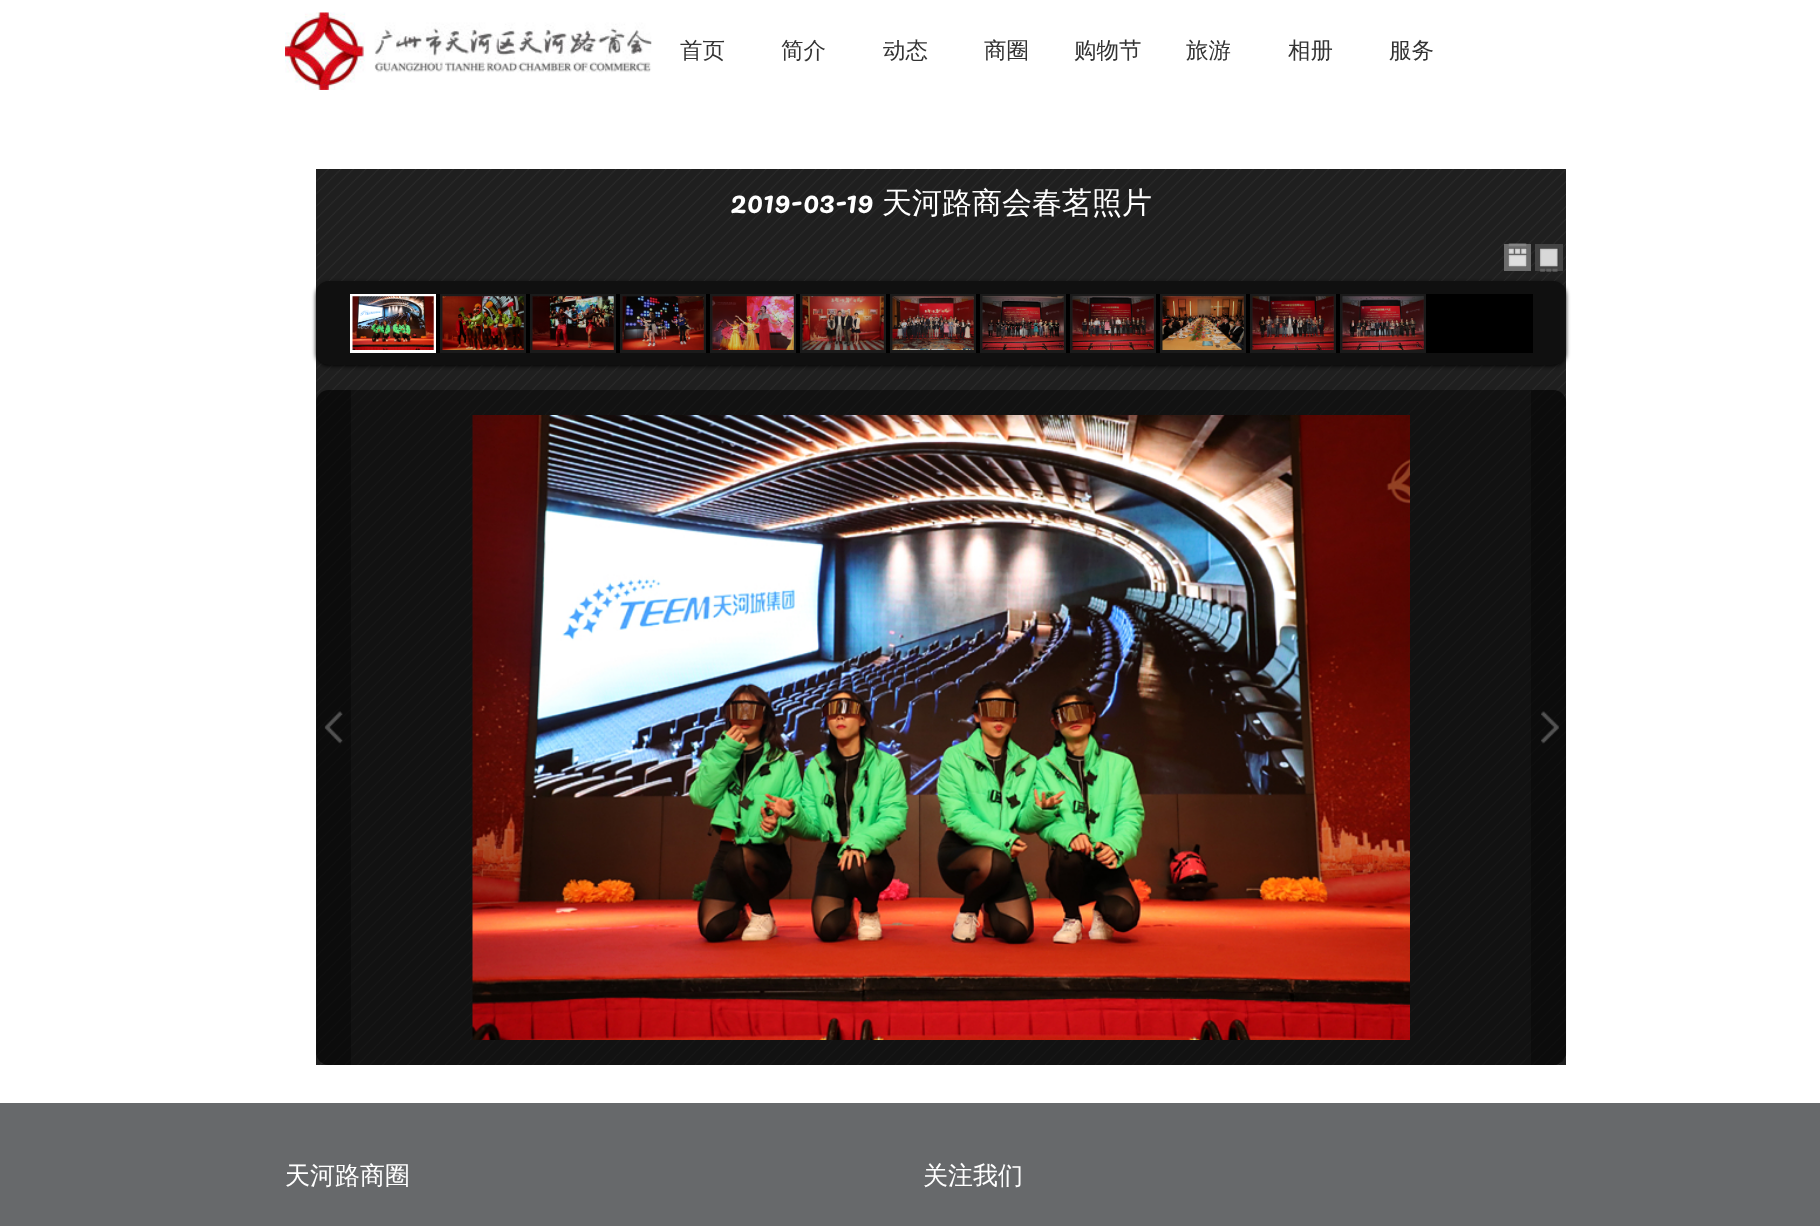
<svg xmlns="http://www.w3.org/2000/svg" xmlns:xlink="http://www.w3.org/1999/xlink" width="1820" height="1226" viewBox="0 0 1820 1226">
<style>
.cls-1{font:500 22.5px WenQuanYi Zen Hei;fill:#333333}
.cls-2{font:30px Pacifico;fill:#ffffff}
.cls-3{font:500 30px WenQuanYi Zen Hei;fill:#ffffff}
.cls-4{font:500 25px WenQuanYi Zen Hei;fill:#ffffff}
</style>
<rect width="100%" height="100%" fill="#ffffff"/>
<image xlink:href="image0.png" x="285" y="12" width="367" height="78"/>
<rect fill="#1f1f1f" x="316" y="169" width="1250" height="896"/>
<image xlink:href="image1.png" x="316" y="169" width="1250" height="896"/>
<rect fill="#6f6f6f" fill-opacity="0.8" x="1504" y="244" width="27" height="27"/>
<image xlink:href="image2.png" x="1508" y="243" width="19" height="24"/>
<rect fill="none" stroke="#6f6f6f" stroke-opacity="0.8" stroke-width="4" x="1506" y="246" width="23" height="23"/>
<rect fill="#464646" fill-opacity="0.8" x="1535" y="244" width="28" height="27"/>
<image xlink:href="image3.png" x="1539" y="248" width="19" height="24"/>
<rect fill="none" stroke="#464646" stroke-opacity="0.8" stroke-width="4" x="1537" y="246" width="24" height="23"/>
<rect fill="#000000" fill-opacity="0.9" filter="blur(2px)" x="316" y="283" width="1250" height="83" rx="13"/>
<rect fill="#101010" x="316" y="281" width="1250" height="84" rx="13"/>
<rect fill="#000000" x="436" y="294" width="1097" height="59"/>
<rect fill="none" stroke="#ffffff" stroke-width="3" x="351.5" y="295.5" width="83" height="56"/>
<image xlink:href="image4.png" x="352" y="296" width="82" height="54"/>
<rect fill="none" stroke="#1b1b1b" stroke-width="3" x="441.5" y="295.5" width="83" height="56"/>
<image xlink:href="image5.png" x="442" y="296" width="82" height="54"/>
<rect fill="none" stroke="#1b1b1b" stroke-width="3" x="531.5" y="295.5" width="83" height="56"/>
<image xlink:href="image6.png" x="532" y="296" width="82" height="54"/>
<rect fill="none" stroke="#1b1b1b" stroke-width="3" x="621.5" y="295.5" width="83" height="56"/>
<image xlink:href="image7.png" x="622" y="296" width="82" height="54"/>
<rect fill="none" stroke="#1b1b1b" stroke-width="3" x="711.5" y="295.5" width="83" height="56"/>
<image xlink:href="image8.png" x="712" y="296" width="82" height="54"/>
<rect fill="none" stroke="#1b1b1b" stroke-width="3" x="801.5" y="295.5" width="83" height="56"/>
<image xlink:href="image9.png" x="802" y="296" width="82" height="54"/>
<rect fill="none" stroke="#1b1b1b" stroke-width="3" x="891.5" y="295.5" width="83" height="56"/>
<image xlink:href="image10.png" x="892" y="296" width="82" height="54"/>
<rect fill="none" stroke="#1b1b1b" stroke-width="3" x="981.5" y="295.5" width="83" height="56"/>
<image xlink:href="image11.png" x="982" y="296" width="82" height="54"/>
<rect fill="none" stroke="#1b1b1b" stroke-width="3" x="1071.5" y="295.5" width="83" height="56"/>
<image xlink:href="image12.png" x="1072" y="296" width="82" height="54"/>
<rect fill="none" stroke="#1b1b1b" stroke-width="3" x="1161.5" y="295.5" width="83" height="56"/>
<image xlink:href="image13.png" x="1162" y="296" width="82" height="54"/>
<rect fill="none" stroke="#1b1b1b" stroke-width="3" x="1251.5" y="295.5" width="83" height="56"/>
<image xlink:href="image14.png" x="1252" y="296" width="82" height="54"/>
<rect fill="none" stroke="#1b1b1b" stroke-width="3" x="1341.5" y="295.5" width="83" height="56"/>
<image xlink:href="image15.png" x="1342" y="296" width="82" height="54"/>
<image xlink:href="image16.png" x="316" y="390" width="1251" height="675"/>
<path fill="#000000" fill-opacity="0.3" d="M329 390H351V1065H329C322 1065 316 1059 316 1052V403C316 396 322 390 329 390Z"/>
<image xlink:href="image17.png" x="324" y="711" width="19" height="33"/>
<path fill="#000000" fill-opacity="0.3" d="M1531 390H1553C1560 390 1566 396 1566 403V1052C1566 1059 1560 1065 1553 1065H1531Z"/>
<image xlink:href="image18.png" x="1541" y="711" width="18" height="33"/>
<image xlink:href="image19.png" x="472" y="415" width="938" height="625"/>
<rect fill="#67696b" x="0" y="1103" width="1820" height="123"/>
<text class="cls-1" x="680" y="58">首页</text>
<text class="cls-1" x="781" y="58">简介</text>
<text class="cls-1" x="883" y="58">动态</text>
<text class="cls-1" x="984" y="58">商圈</text>
<text class="cls-1" x="1074" y="58">购物节</text>
<text class="cls-1" x="1186" y="58">旅游</text>
<text class="cls-1" x="1288" y="58">相册</text>
<text class="cls-1" x="1389" y="58">服务</text>
<text class="cls-2" x="730" y="213">2019-03-19</text>
<text class="cls-3" x="882" y="213">天河路商会春茗照片</text>
<text class="cls-4" x="285" y="1184">天河路商圈</text>
<text class="cls-4" x="923" y="1184">关注我们</text>
</svg>
